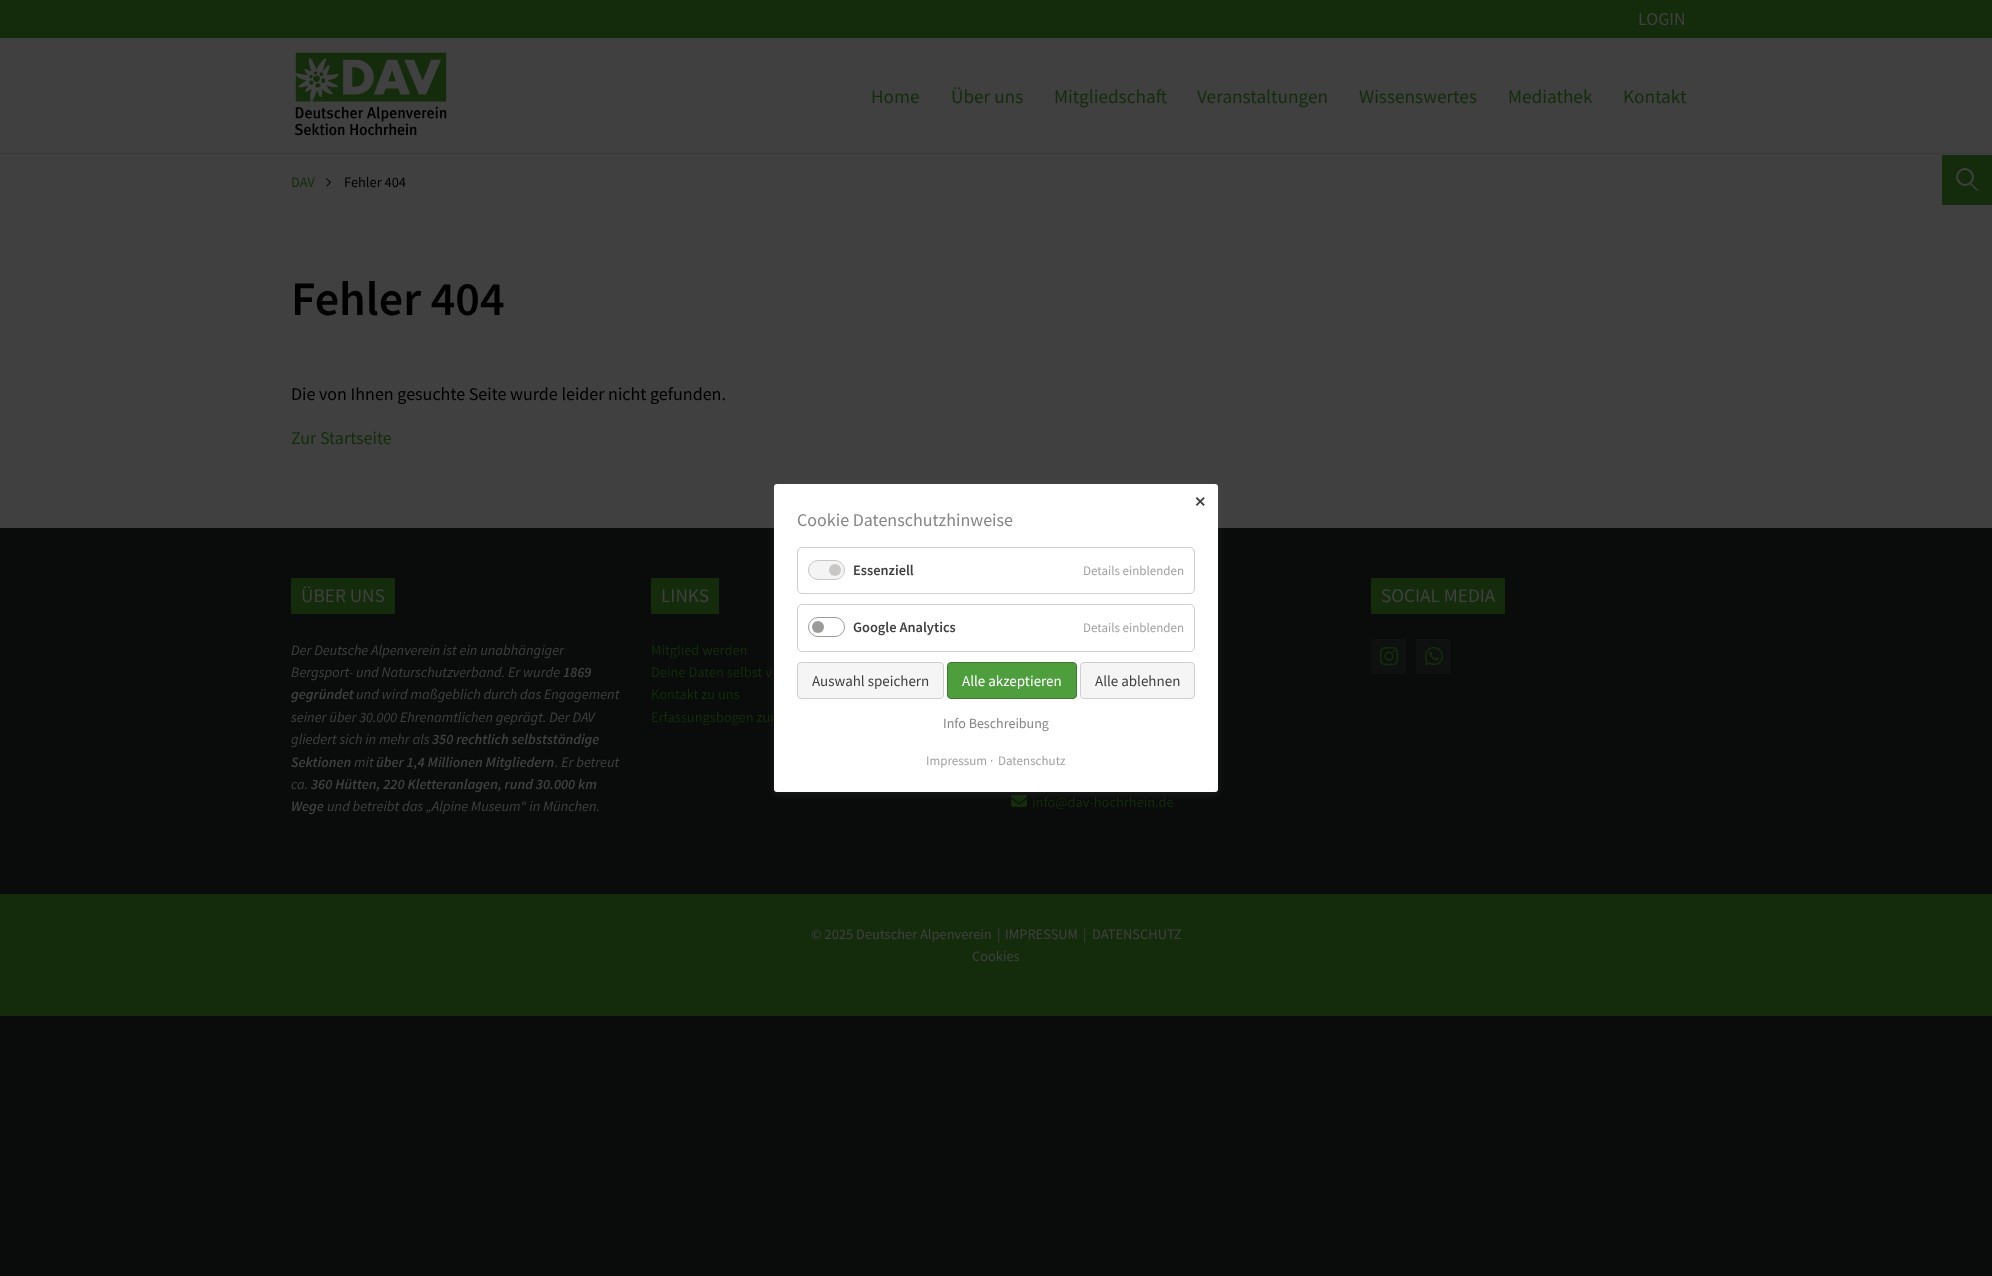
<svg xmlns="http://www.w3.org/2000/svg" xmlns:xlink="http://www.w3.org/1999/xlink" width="1992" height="1276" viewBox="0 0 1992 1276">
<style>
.cls-1{font:18px Source Sans Pro;fill:#404040}
.cls-2{font:19.25px Source Sans Pro;fill:#142c0c}
.cls-3{font:14.4px Source Sans Pro;fill:#142c0c}
.cls-4{font:14.4px Source Sans Pro;fill:#000000}
.cls-5{font:600 48px Source Sans Pro;fill:#000000}
.cls-6{font:18px Source Sans Pro;fill:#000000}
.cls-7{font:18px Source Sans Pro;fill:#142c0c}
.cls-8{font:19.25px Source Sans Pro;fill:#404040}
.cls-9{font:italic 14.4px Source Sans Pro;fill:#404040}
.cls-10{font:italic 600 14.4px Source Sans Pro;fill:#404040}
.cls-11{font:14.4px Source Sans Pro;fill:#404040}
.cls-12{font:bold 14.4px DejaVu Sans;fill:#404040}
.cls-13{font:18px Source Sans Pro;fill:#868686}
.cls-14{font:600 14.4px Source Sans Pro;fill:#404040}
.cls-15{font:13px Source Sans Pro;fill:#a2a2a2}
.cls-16{font:15px Source Sans Pro;fill:#404040}
.cls-17{font:15px Source Sans Pro;fill:#ffffff}
.cls-18{font:14px Source Sans Pro;fill:#868686}
</style>
<rect width="100%" height="100%" fill="#0a0b0b"/>
<rect fill="#142c0c" x="0" y="0" width="1992" height="38"/>
<rect fill="#404040" x="0" y="38" width="1992" height="490"/>
<rect fill="#393939" x="0" y="153" width="1992" height="1"/>
<image xlink:href="image0.png" x="294" y="52" width="153" height="84"/>
<rect fill="#142c0c" x="1942" y="155" width="50" height="50"/>
<path fill="none" stroke="#404040" stroke-width="2" d="M1970.5 171.5C1978 179 1967 190 1959.5 182.5C1952 175 1963 164 1970.5 171.5Z"/>
<path fill="#404040" d="M1970 184L1971 183L1978 190L1977 191Z"/>
<image xlink:href="image1.png" x="326" y="178" width="5" height="9"/>
<rect fill="#142c0c" x="291" y="578" width="104" height="36"/>
<rect fill="#142c0c" x="651" y="578" width="68" height="36"/>
<rect fill="#142c0c" x="1371" y="578" width="134" height="36"/>
<rect fill="#0e110f" x="1371" y="639" width="35" height="35"/>
<image xlink:href="image2.png" x="1379" y="646" width="20" height="20"/>
<rect fill="#0e110f" x="1416" y="639" width="35" height="35"/>
<image xlink:href="image3.png" x="1424" y="647" width="20" height="19"/>
<image xlink:href="image4.png" x="1011" y="795" width="16" height="12"/>
<rect fill="#142c0c" x="0" y="894" width="1992" height="122"/>
<rect fill="#636363" fill-opacity="0.2" filter="blur(4px)" x="774" y="486" width="444" height="308" rx="3"/>
<text class="cls-1" x="1638" y="25">LOGIN</text>
<text class="cls-2" x="871" y="103">Home</text>
<text class="cls-2" x="951" y="103">Über uns</text>
<text class="cls-2" x="1054" y="103">Mitgliedschaft</text>
<text class="cls-2" x="1197" y="103">Veranstaltungen</text>
<text class="cls-2" x="1359" y="103">Wissenswertes</text>
<text class="cls-2" x="1508" y="103">Mediathek</text>
<text class="cls-2" x="1623" y="103">Kontakt</text>
<text class="cls-3" x="291" y="187">DAV</text>
<text class="cls-4" x="344" y="187">Fehler 404</text>
<text class="cls-5" x="291" y="315">Fehler 404</text>
<text class="cls-6" x="291" y="400">Die von Ihnen gesuchte Seite wurde leider nicht gefunden.</text>
<text class="cls-7" x="291" y="444">Zur Startseite</text>
<text class="cls-8" x="301" y="602">ÜBER UNS</text>
<text class="cls-9"><tspan x="291" y="655">Der Deutsche Alpenverein ist ein unabhängiger</tspan><tspan x="291" y="677">Bergsport- und Naturschutzverband. Er wurde</tspan></text>
<text class="cls-10" x="563" y="677">1869</text>
<text class="cls-10" x="291" y="699">gegründet</text>
<text class="cls-9" x="356" y="699">und wird maßgeblich durch das Engagement</text>
<text class="cls-9"><tspan x="291" y="722">seiner über 30.000 Ehrenamtlichen geprägt. Der DAV</tspan><tspan x="291" y="744">gliedert sich in mehr als</tspan></text>
<text class="cls-10" x="432" y="744">350 rechtlich selbstständige</text>
<text class="cls-10" x="291" y="767">Sektionen</text>
<text class="cls-9" x="354" y="767">mit</text>
<text class="cls-10" x="376" y="767">über 1,4 Millionen Mitgliedern</text>
<text class="cls-9" x="555" y="767">. Er betreut</text>
<text class="cls-9" x="291" y="789">ca.</text>
<text class="cls-10" x="311" y="789">360 Hütten, 220 Kletteranlagen, rund 30.000 km</text>
<text class="cls-10" x="291" y="811">Wege</text>
<text class="cls-9" x="327" y="811">und betreibt das „Alpine Museum“ in München.</text>
<text class="cls-8" x="661" y="602">LINKS</text>
<text class="cls-3"><tspan x="651" y="655">Mitglied werden</tspan><tspan x="651" y="677">Deine Daten selbst v</tspan><tspan x="651" y="699">Kontakt zu uns</tspan><tspan x="651" y="722">Erfassungsbogen zur</tspan></text>
<text class="cls-8" x="1381" y="602">SOCIAL MEDIA</text>
<text class="cls-3" x="1032" y="807">info@dav-hochrhein.de</text>
<text class="cls-11" x="811" y="939">© 2025 Deutscher Alpenverein</text>
<text class="cls-11" x="997" y="939">|</text>
<text class="cls-11" x="1005" y="939">IMPRESSUM</text>
<text class="cls-11" x="1083" y="939">|</text>
<text class="cls-11" x="1092" y="939">DATENSCHUTZ</text>
<text class="cls-11" x="972" y="961">Cookies</text>
<rect fill="#ffffff" x="774" y="484" width="444" height="308" rx="3"/>
<text class="cls-12" x="1194" y="507">✕</text>
<text class="cls-13" x="797" y="526">Cookie Datenschutzhinweise</text>
<rect fill="none" stroke="#d0d0d0" x="797.5" y="547.5" width="397" height="46" rx="4.5"/>
<rect fill="#f4f4f4" stroke="#c8c7c5" x="808.5" y="560.5" width="36" height="19" rx="9.5"/>
<circle fill="#c8c7c5" cx="835" cy="570" r="6"/>
<text class="cls-14" x="853" y="575">Essenziell</text>
<text class="cls-15" x="1083" y="575">Details einblenden</text>
<rect fill="none" stroke="#d0d0d0" x="797.5" y="604.5" width="397" height="47" rx="4.5"/>
<rect fill="none" stroke="#9c9b99" x="808.5" y="617.5" width="36" height="19" rx="9.5"/>
<circle fill="#9c9b99" cx="818" cy="627" r="6"/>
<text class="cls-14" x="853" y="632">Google Analytics</text>
<text class="cls-15" x="1083" y="632">Details einblenden</text>
<rect fill="#f5f5f5" stroke="#cfcfcf" x="797.5" y="662.5" width="146" height="36" rx="3.5"/>
<text class="cls-16" x="812" y="686">Auswahl speichern</text>
<rect fill="#4e9e3e" stroke="#3e7830" x="947.5" y="662.5" width="129" height="36" rx="3.5"/>
<text class="cls-17" x="962" y="686">Alle akzeptieren</text>
<rect fill="#f5f5f5" stroke="#cfcfcf" x="1080.5" y="662.5" width="114" height="36" rx="3.5"/>
<text class="cls-16" x="1095" y="686">Alle ablehnen</text>
<text class="cls-18" x="943" y="728">Info Beschreibung</text>
<text class="cls-15" x="926" y="765">Impressum</text>
<text class="cls-15" x="990" y="765">·</text>
<text class="cls-15" x="998" y="765">Datenschutz</text>
</svg>
